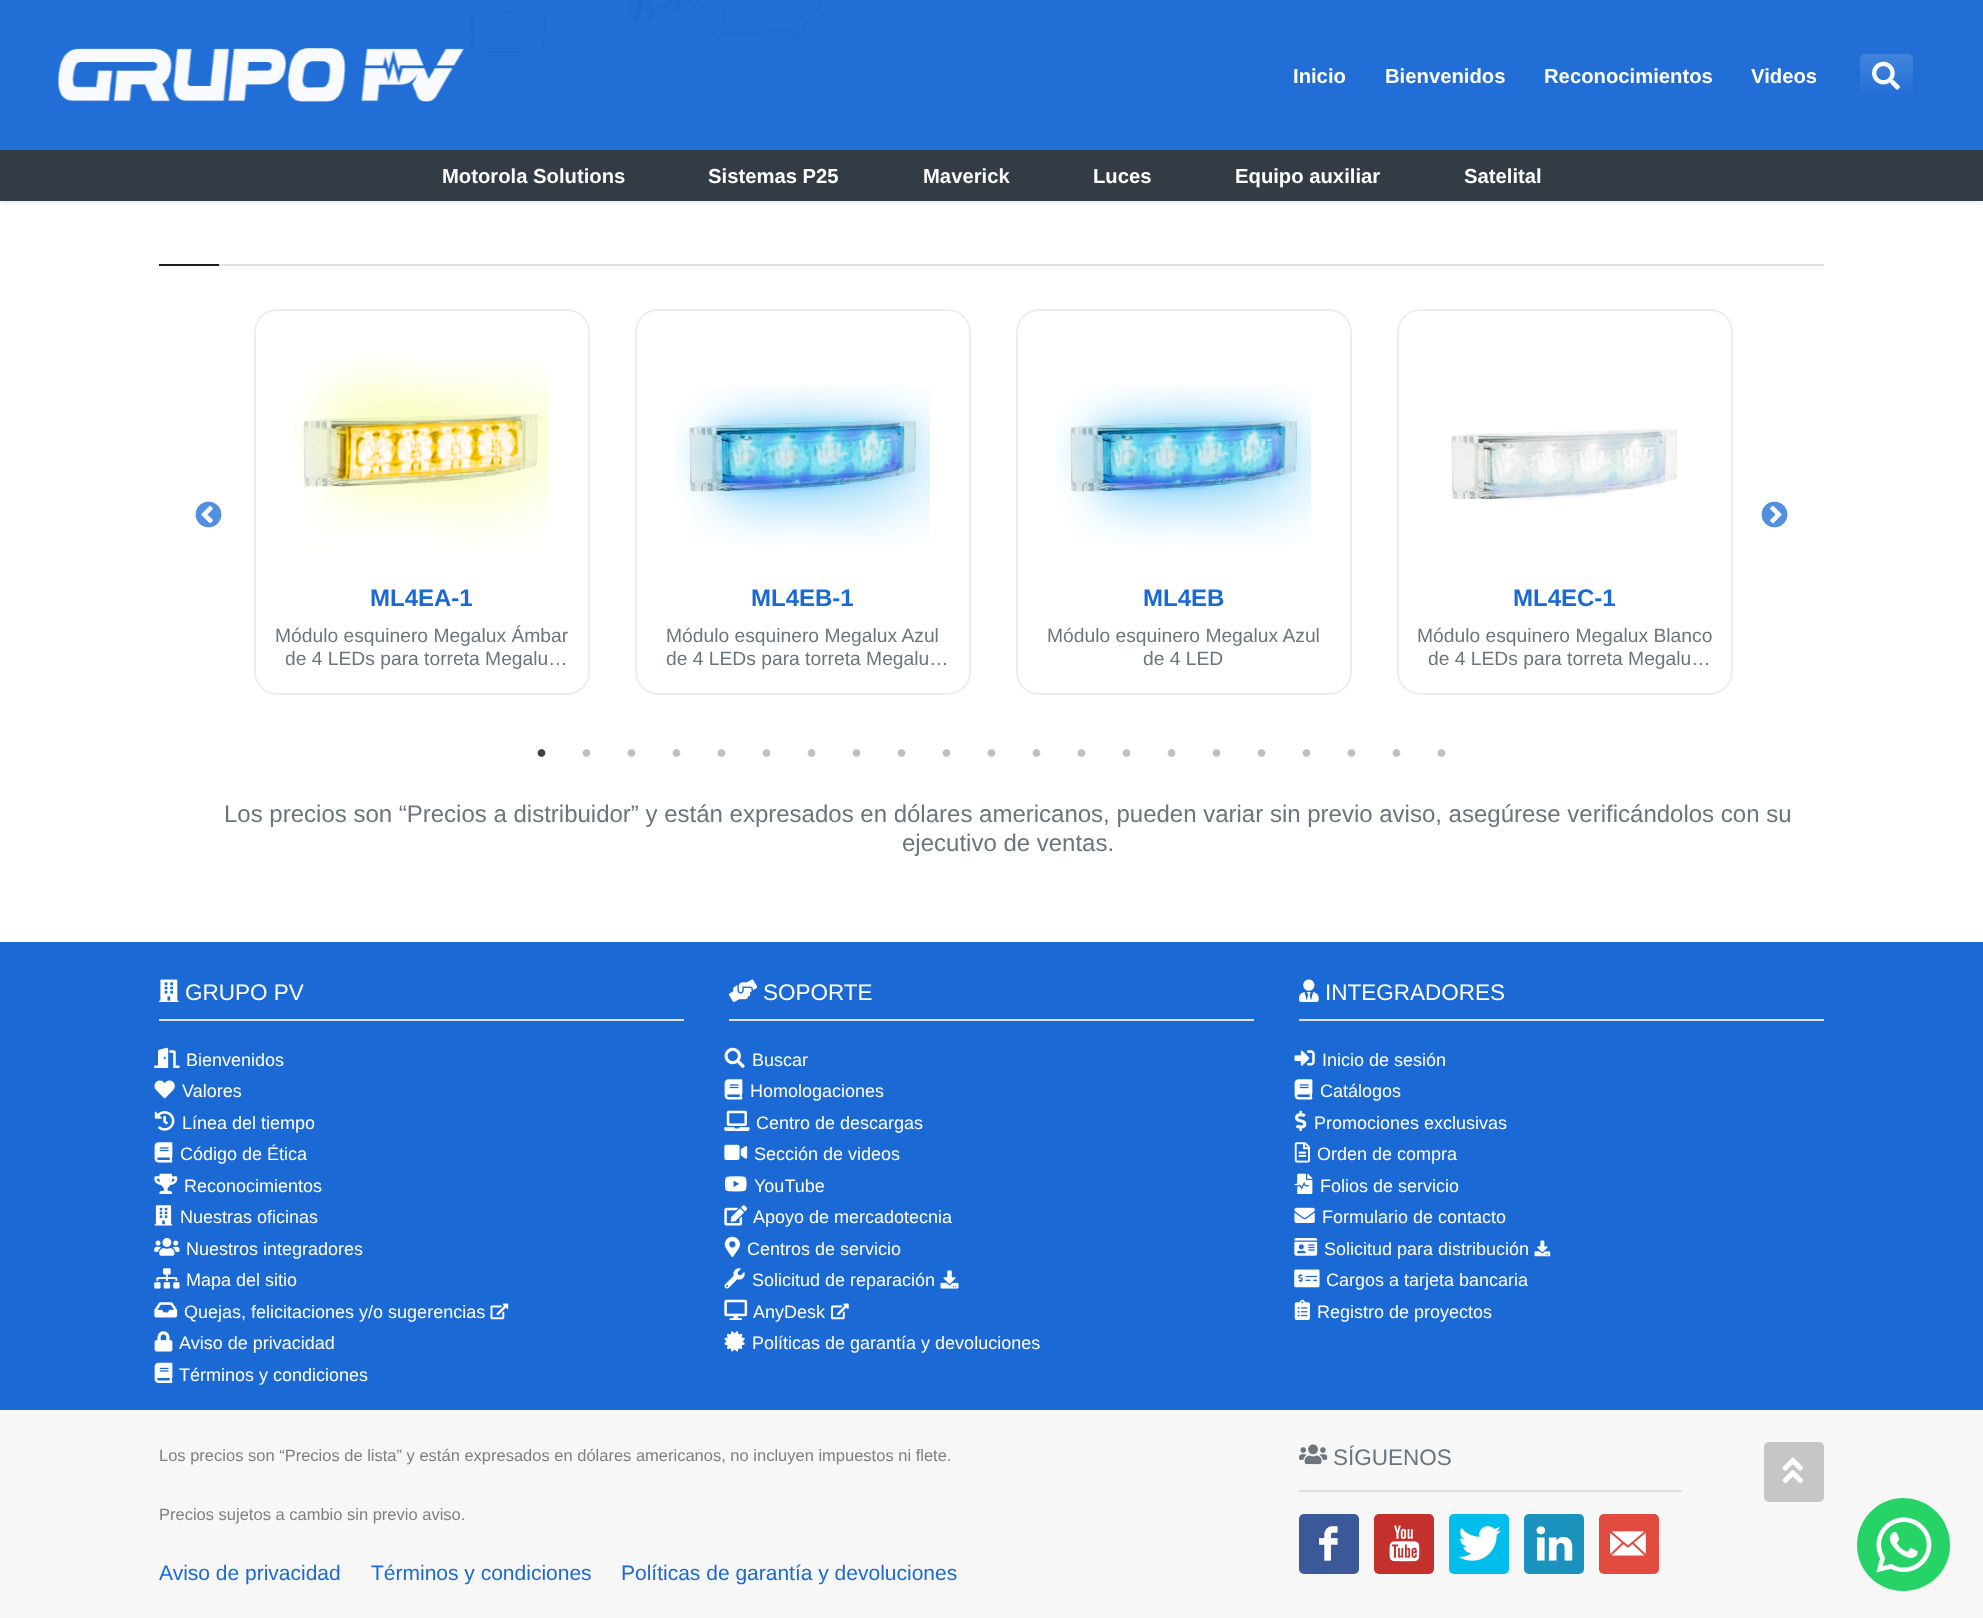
<svg xmlns="http://www.w3.org/2000/svg" xmlns:xlink="http://www.w3.org/1999/xlink" width="1983" height="1618" viewBox="0 0 1983 1618">
<style>
.cls-1{font:bold 20.25px Liberation Sans;fill:#ffffff}
.cls-2{font:bold 20.25px Liberation Sans;fill:#f9f9f9}
.cls-3{font:bold 24px Arimo;fill:#1a69d5}
.cls-4{font:19.25px Arimo;fill:#6c757d}
.cls-5{font:24px Arimo;fill:#6c757d}
.cls-6{font:22.5px Arimo;fill:#ffffff}
.cls-7{font:18px Arimo;fill:#ffffff}
.cls-8{font:16.5px Arimo;fill:#7f7f7f}
.cls-9{font:21px Arimo;fill:#1a69d5}
.cls-10{font:22.5px Arimo;fill:#6c757d}
</style>
<defs>
<clipPath id="clip1"><rect x="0" y="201" width="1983" height="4"/></clipPath>
<linearGradient id="g1" gradientUnits="userSpaceOnUse" x1="1886" y1="54" x2="1886" y2="98"><stop offset="0" stop-color="#4284dc"/><stop offset="1" stop-color="#216ed6"/></linearGradient>
</defs>
<rect width="100%" height="100%" fill="#ffffff"/>
<image xlink:href="image2.png" x="470" y="0" width="356" height="68"/>
<g clip-path="url(#clip1)">
<rect fill="#000000" fill-opacity="0.15" filter="blur(4px)" x="0" y="0" width="1983" height="201"/>
</g>
<rect fill="#1a69d5" fill-opacity="0.97" x="0" y="0" width="1983" height="201"/>
<image xlink:href="image0.png" x="58" y="48" width="406" height="54"/>
<rect fill="url(#g1)" x="1860" y="54" width="53" height="44" rx="5"/>
<image xlink:href="image1.png" x="1872" y="61" width="28" height="29"/>
<rect fill="#343a40" fill-opacity="0.97" x="0" y="150" width="1983" height="51"/>
<rect fill="#e1e1e1" x="219" y="264" width="1605" height="2"/>
<rect fill="#1e1e1e" x="159" y="264" width="60" height="2"/>
<image xlink:href="image3.png" x="195" y="501" width="27" height="27"/>
<image xlink:href="image4.png" x="1761" y="501" width="27" height="27"/>
<rect fill="none" stroke="#eeeeee" stroke-width="2" x="255" y="310" width="334" height="384" rx="22"/>
<image xlink:href="image5.png" x="294" y="354" width="255" height="197"/>
<rect fill="none" stroke="#eeeeee" stroke-width="2" x="636" y="310" width="334" height="384" rx="22"/>
<image xlink:href="image6.png" x="675" y="385" width="255" height="160"/>
<rect fill="none" stroke="#eeeeee" stroke-width="2" x="1017" y="310" width="334" height="384" rx="22"/>
<image xlink:href="image6.png" x="1056" y="385" width="255" height="160"/>
<rect fill="none" stroke="#eeeeee" stroke-width="2" x="1398" y="310" width="334" height="384" rx="22"/>
<image xlink:href="image7.png" x="1451" y="429" width="226" height="72"/>
<image xlink:href="image8.png" x="537" y="749" width="9" height="8"/>
<image xlink:href="image9.png" x="582" y="749" width="9" height="8"/>
<image xlink:href="image9.png" x="627" y="749" width="9" height="8"/>
<image xlink:href="image9.png" x="672" y="749" width="9" height="8"/>
<image xlink:href="image9.png" x="717" y="749" width="9" height="8"/>
<image xlink:href="image9.png" x="762" y="749" width="9" height="8"/>
<image xlink:href="image9.png" x="807" y="749" width="9" height="8"/>
<image xlink:href="image9.png" x="852" y="749" width="9" height="8"/>
<image xlink:href="image9.png" x="897" y="749" width="9" height="8"/>
<image xlink:href="image9.png" x="942" y="749" width="9" height="8"/>
<image xlink:href="image9.png" x="987" y="749" width="9" height="8"/>
<image xlink:href="image9.png" x="1032" y="749" width="9" height="8"/>
<image xlink:href="image9.png" x="1077" y="749" width="9" height="8"/>
<image xlink:href="image9.png" x="1122" y="749" width="9" height="8"/>
<image xlink:href="image9.png" x="1167" y="749" width="9" height="8"/>
<image xlink:href="image9.png" x="1212" y="749" width="9" height="8"/>
<image xlink:href="image9.png" x="1257" y="749" width="9" height="8"/>
<image xlink:href="image9.png" x="1302" y="749" width="9" height="8"/>
<image xlink:href="image9.png" x="1347" y="749" width="9" height="8"/>
<image xlink:href="image9.png" x="1392" y="749" width="9" height="8"/>
<image xlink:href="image9.png" x="1437" y="749" width="9" height="8"/>
<rect fill="#1a69d5" x="0" y="942" width="1983" height="468"/>
<rect fill="#e1e1e1" x="159" y="1019" width="525" height="2"/>
<image xlink:href="image10.png" x="159" y="979" width="20" height="23"/>
<image xlink:href="image11.png" x="154" y="1047" width="26" height="21"/>
<image xlink:href="image12.png" x="154" y="1080" width="21" height="19"/>
<image xlink:href="image13.png" x="154" y="1111" width="21" height="20"/>
<image xlink:href="image14.png" x="154" y="1142" width="19" height="21"/>
<image xlink:href="image15.png" x="154" y="1173" width="24" height="21"/>
<image xlink:href="image16.png" x="154" y="1205" width="19" height="21"/>
<image xlink:href="image17.png" x="154" y="1238" width="26" height="18"/>
<image xlink:href="image18.png" x="154" y="1268" width="26" height="21"/>
<image xlink:href="image19.png" x="154" y="1302" width="24" height="16"/>
<image xlink:href="image20.png" x="490" y="1303" width="19" height="17"/>
<image xlink:href="image21.png" x="154" y="1331" width="19" height="21"/>
<image xlink:href="image22.png" x="154" y="1362" width="19" height="21"/>
<rect fill="#e1e1e1" x="729" y="1019" width="525" height="2"/>
<image xlink:href="image23.png" x="729" y="979" width="29" height="23"/>
<image xlink:href="image24.png" x="724" y="1047" width="21" height="21"/>
<image xlink:href="image14.png" x="724" y="1079" width="19" height="21"/>
<image xlink:href="image25.png" x="724" y="1110" width="26" height="21"/>
<image xlink:href="image26.png" x="724" y="1144" width="24" height="16"/>
<image xlink:href="image27.png" x="724" y="1176" width="23" height="16"/>
<image xlink:href="image28.png" x="724" y="1205" width="24" height="21"/>
<image xlink:href="image29.png" x="724" y="1236" width="16" height="21"/>
<image xlink:href="image30.png" x="724" y="1268" width="21" height="21"/>
<image xlink:href="image31.png" x="940" y="1270" width="19" height="19"/>
<image xlink:href="image32.png" x="724" y="1299" width="24" height="21"/>
<image xlink:href="image33.png" x="831" y="1303" width="18" height="17"/>
<image xlink:href="image34.png" x="724" y="1331" width="21" height="21"/>
<rect fill="#e1e1e1" x="1299" y="1019" width="525" height="2"/>
<image xlink:href="image35.png" x="1299" y="979" width="20" height="23"/>
<image xlink:href="image36.png" x="1294" y="1050" width="21" height="16"/>
<image xlink:href="image14.png" x="1294" y="1079" width="19" height="21"/>
<image xlink:href="image37.png" x="1295" y="1110" width="12" height="21"/>
<image xlink:href="image38.png" x="1294" y="1142" width="16" height="21"/>
<image xlink:href="image39.png" x="1294" y="1173" width="19" height="21"/>
<image xlink:href="image40.png" x="1294" y="1207" width="21" height="16"/>
<image xlink:href="image41.png" x="1294" y="1238" width="24" height="18"/>
<image xlink:href="image42.png" x="1534" y="1240" width="17" height="17"/>
<image xlink:href="image43.png" x="1294" y="1269" width="26" height="19"/>
<image xlink:href="image44.png" x="1294" y="1299" width="16" height="21"/>
<rect fill="#f7f7f7" x="0" y="1410" width="1983" height="208"/>
<rect fill="#e1e1e1" x="1299" y="1490" width="383" height="2"/>
<image xlink:href="image45.png" x="1299" y="1444" width="29" height="21"/>
<rect fill="#3b5998" x="1299" y="1514" width="60" height="60" rx="5"/>
<image xlink:href="image46.png" x="1319" y="1526" width="19" height="35"/>
<rect fill="#c4302b" x="1374" y="1514" width="60" height="60" rx="5"/>
<image xlink:href="image47.png" x="1389" y="1525" width="31" height="37"/>
<rect fill="#00bdec" x="1449" y="1514" width="60" height="60" rx="5"/>
<image xlink:href="image48.png" x="1458" y="1526" width="43" height="35"/>
<rect fill="#1b92bd" x="1524" y="1514" width="60" height="60" rx="5"/>
<image xlink:href="image49.png" x="1536" y="1526" width="37" height="35"/>
<rect fill="#e04a3f" x="1599" y="1514" width="60" height="60" rx="5"/>
<image xlink:href="image50.png" x="1610" y="1531" width="36" height="25"/>
<rect fill="#c6c6c6" x="1764" y="1442" width="60" height="60" rx="5"/>
<image xlink:href="image51.png" x="1782" y="1457" width="21" height="27"/>
<path fill="#25d366" d="M1903 1498C1878 1498 1857 1519 1857 1545C1857 1571 1878 1591 1903 1591C1929 1591 1950 1571 1950 1545C1950 1519 1929 1498 1903 1498Z"/>
<image xlink:href="image52.png" x="1876" y="1517" width="56" height="56"/>
<text class="cls-1" x="1293" y="83">Inicio</text>
<text class="cls-1" x="1385" y="83">Bienvenidos</text>
<text class="cls-1" x="1544" y="83">Reconocimientos</text>
<text class="cls-1" x="1751" y="83">Videos</text>
<text class="cls-2" x="442" y="183">Motorola Solutions</text>
<text class="cls-1" x="708" y="183">Sistemas P25</text>
<text class="cls-2" x="923" y="183">Maverick</text>
<text class="cls-1" x="1093" y="183">Luces</text>
<text class="cls-1" x="1235" y="183">Equipo auxiliar</text>
<text class="cls-1" x="1464" y="183">Satelital</text>
<text class="cls-3" x="370" y="606">ML4EA-1</text>
<text class="cls-4" x="275" y="642">Módulo esquinero Megalux Ámbar</text>
<text class="cls-4" x="285" y="665">de 4 LEDs para torreta Megalu…</text>
<text class="cls-3" x="751" y="606">ML4EB-1</text>
<text class="cls-4"><tspan x="666" y="642">Módulo esquinero Megalux Azul</tspan><tspan x="666" y="665">de 4 LEDs para torreta Megalu…</tspan></text>
<text class="cls-3" x="1143" y="606">ML4EB</text>
<text class="cls-4" x="1047" y="642">Módulo esquinero Megalux Azul</text>
<text class="cls-4" x="1143" y="665">de 4 LED</text>
<text class="cls-3" x="1513" y="606">ML4EC-1</text>
<text class="cls-4" x="1417" y="642">Módulo esquinero Megalux Blanco</text>
<text class="cls-4" x="1428" y="665">de 4 LEDs para torreta Megalu…</text>
<text class="cls-5" x="224" y="822">Los precios son “Precios a distribuidor” y están expresados en dólares americanos, pueden variar sin previo aviso, asegúrese verificándolos con su</text>
<text class="cls-5" x="902" y="851">ejecutivo de ventas.</text>
<text class="cls-6" x="185" y="1000">GRUPO PV</text>
<text class="cls-7" x="186" y="1066">Bienvenidos</text>
<text class="cls-7"><tspan x="182" y="1097">Valores</tspan><tspan x="182" y="1129">Línea del tiempo</tspan></text>
<text class="cls-7" x="180" y="1160">Código de Ética</text>
<text class="cls-7" x="184" y="1192">Reconocimientos</text>
<text class="cls-7" x="180" y="1223">Nuestras oficinas</text>
<text class="cls-7"><tspan x="186" y="1255">Nuestros integradores</tspan><tspan x="186" y="1286">Mapa del sitio</tspan></text>
<text class="cls-7" x="184" y="1318">Quejas, felicitaciones y/o sugerencias</text>
<text class="cls-7"><tspan x="179" y="1349">Aviso de privacidad</tspan><tspan x="179" y="1381">Términos y condiciones</tspan></text>
<text class="cls-6" x="763" y="1000">SOPORTE</text>
<text class="cls-7" x="752" y="1066">Buscar</text>
<text class="cls-7" x="750" y="1097">Homologaciones</text>
<text class="cls-7" x="756" y="1129">Centro de descargas</text>
<text class="cls-7"><tspan x="754" y="1160">Sección de videos</tspan><tspan x="754" y="1192">YouTube</tspan></text>
<text class="cls-7" x="753" y="1223">Apoyo de mercadotecnia</text>
<text class="cls-7" x="747" y="1255">Centros de servicio</text>
<text class="cls-7" x="752" y="1286">Solicitud de reparación</text>
<text class="cls-7" x="753" y="1318">AnyDesk</text>
<text class="cls-7" x="752" y="1349">Políticas de garantía y devoluciones</text>
<text class="cls-6" x="1325" y="1000">INTEGRADORES</text>
<text class="cls-7" x="1322" y="1066">Inicio de sesión</text>
<text class="cls-7" x="1320" y="1097">Catálogos</text>
<text class="cls-7" x="1314" y="1129">Promociones exclusivas</text>
<text class="cls-7" x="1317" y="1160">Orden de compra</text>
<text class="cls-7" x="1320" y="1192">Folios de servicio</text>
<text class="cls-7" x="1322" y="1223">Formulario de contacto</text>
<text class="cls-7" x="1324" y="1255">Solicitud para distribución</text>
<text class="cls-7" x="1326" y="1286">Cargos a tarjeta bancaria</text>
<text class="cls-7" x="1317" y="1318">Registro de proyectos</text>
<text class="cls-8" x="159" y="1461">Los precios son “Precios de lista” y están expresados en dólares americanos, no incluyen impuestos ni flete.</text>
<text class="cls-8" x="159" y="1520">Precios sujetos a cambio sin previo aviso.</text>
<text class="cls-9" x="159" y="1580">Aviso de privacidad</text>
<text class="cls-9" x="371" y="1580">Términos y condiciones</text>
<text class="cls-9" x="621" y="1580">Políticas de garantía y devoluciones</text>
<text class="cls-10" x="1333" y="1465">SÍGUENOS</text>
</svg>
